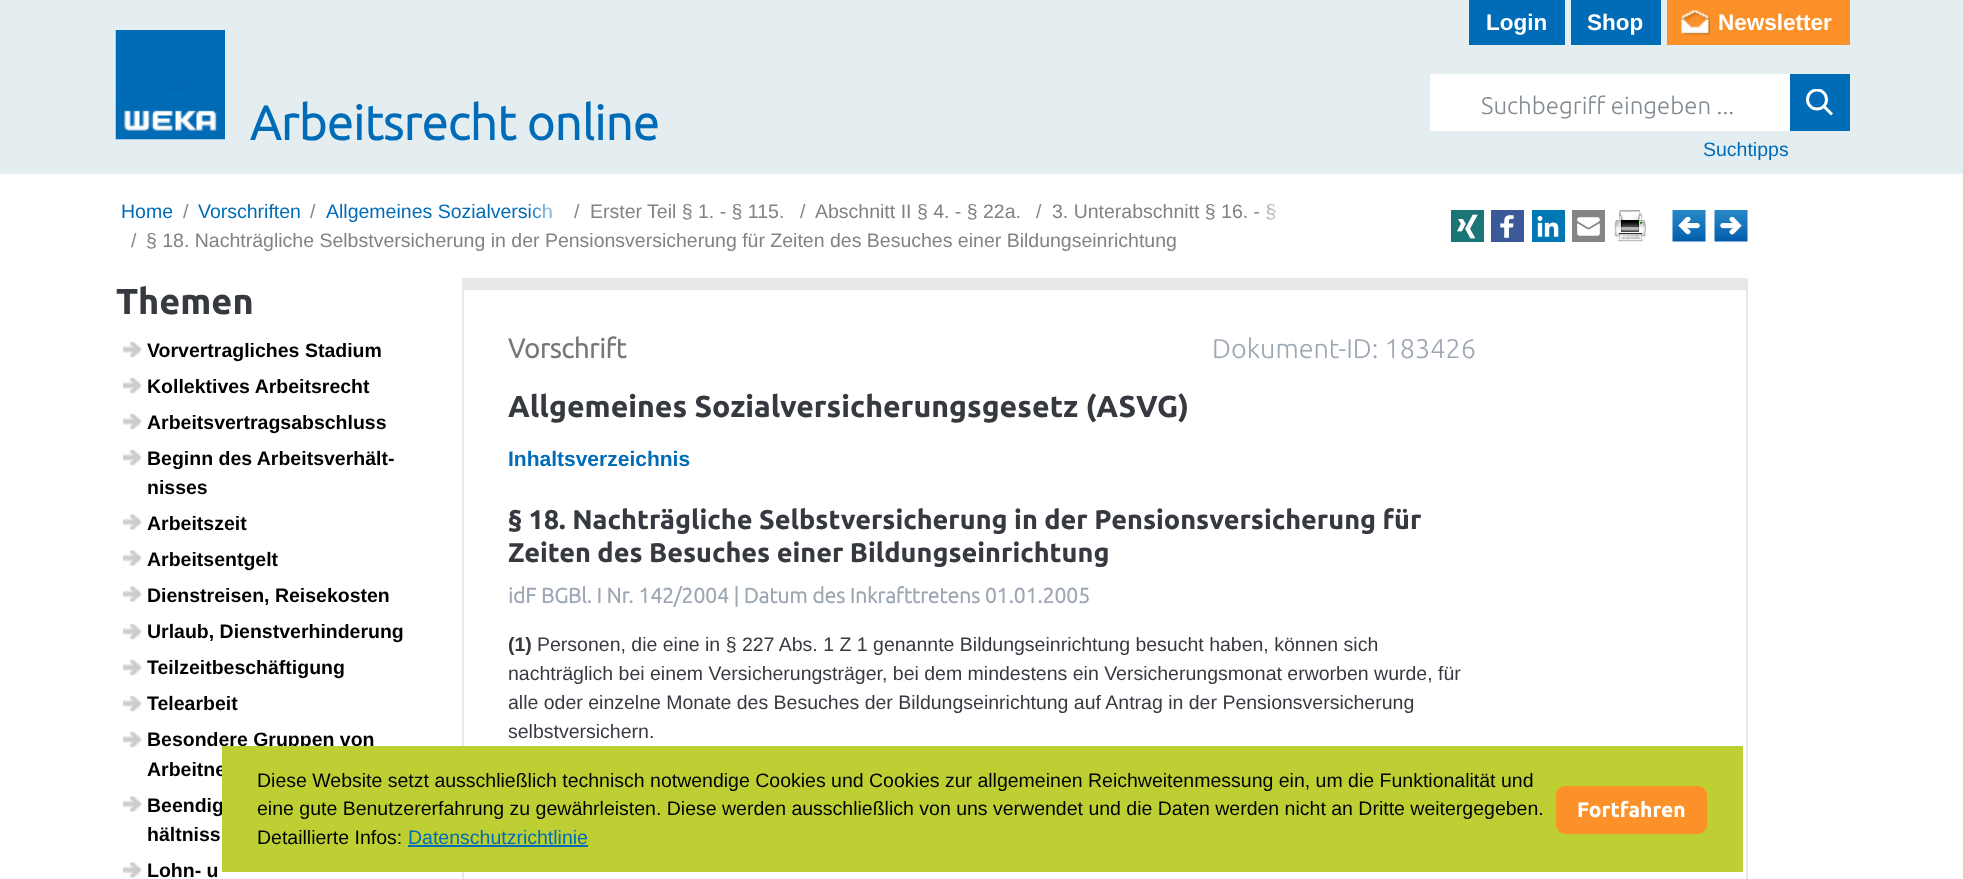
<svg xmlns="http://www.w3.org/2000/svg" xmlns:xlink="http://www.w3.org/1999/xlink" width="1963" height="879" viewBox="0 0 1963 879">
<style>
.cls-1{font:bold 22.5px Liberation Sans;fill:#ffffff}
.cls-2{font:bold 48px Ubuntu;fill:#006bb6}
.cls-3{font:300 24px Ubuntu;fill:#818a91}
.cls-4{font:19.5px Liberation Sans;fill:#006bb6}
.cls-5{font:19.5px Liberation Sans;fill:#818a91}
.cls-6{font:19.5px Liberation Sans;fill:#828282}
.cls-7{font:bold 36px 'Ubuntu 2';fill:#363a40}
.cls-8{font:bold 19.5px Liberation Sans;fill:#000000}
.cls-9{font:bold 27px Ubuntu;fill:#777777}
.cls-10{font:300 27px Ubuntu;fill:#9da6b3}
.cls-11{font:bold 30.25px 'Ubuntu 2';fill:#363a40}
.cls-12{font:bold 21px Liberation Sans;fill:#006bb6}
.cls-13{font:bold 27px 'Ubuntu 2';fill:#363a40}
.cls-14{font:bold 21px Ubuntu;fill:#9da6b3}
.cls-15{font:bold 19.5px Liberation Sans;fill:#363a40}
.cls-16{font:19.5px Liberation Sans;fill:#363a40}
.cls-17{font:19.5px Liberation Sans;fill:#000000}
.cls-18{font:bold 21px 'Ubuntu 2';fill:#ffffff}
</style>
<defs>
<clipPath id="clip1"><rect x="1806" y="89" width="27" height="27"/></clipPath>
<linearGradient id="g1" gradientUnits="userSpaceOnUse" x1="507" y1="211" x2="566" y2="211"><stop offset="0.35" stop-color="#ffffff" stop-opacity="0"/><stop offset="1" stop-color="#ffffff"/></linearGradient>
<linearGradient id="g2" gradientUnits="userSpaceOnUse" x1="996" y1="211" x2="1055" y2="211"><stop offset="0.35" stop-color="#ffffff" stop-opacity="0"/><stop offset="1" stop-color="#ffffff"/></linearGradient>
<linearGradient id="g3" gradientUnits="userSpaceOnUse" x1="1233" y1="211" x2="1292" y2="211"><stop offset="0.35" stop-color="#ffffff" stop-opacity="0"/><stop offset="1" stop-color="#ffffff"/></linearGradient>
</defs>
<rect width="100%" height="100%" fill="#ffffff"/>
<rect fill="#e4edf0" x="0" y="0" width="1963" height="174"/>
<rect fill="#006bb6" x="1469" y="0" width="96" height="45"/>
<rect fill="#006bb6" x="1571" y="0" width="90" height="45"/>
<rect fill="#fc912a" x="1667" y="0" width="183" height="45"/>
<image xlink:href="image0.png" x="1681" y="10" width="29" height="25"/>
<image xlink:href="image1.png" x="115" y="30" width="110" height="110"/>
<rect fill="#ffffff" x="1430" y="74" width="360" height="57"/>
<rect fill="#006bb6" x="1790" y="74" width="60" height="57"/>
<g clip-path="url(#clip1)">
<circle fill="none" stroke="#ffffff" stroke-width="3" cx="1817" cy="99.5" r="9.5"/>
</g>
<path fill="none" stroke="#ffffff" stroke-width="3" d="M1824 106.5L1832 114.5"/>
<rect fill="#1a7576" x="1451" y="210" width="33" height="32"/>
<image xlink:href="image2.png" x="1457" y="214" width="21" height="25"/>
<rect fill="#3b5998" x="1491" y="210" width="33" height="32"/>
<image xlink:href="image3.png" x="1500" y="215" width="14" height="23"/>
<rect fill="#0077b5" x="1532" y="210" width="33" height="32"/>
<image xlink:href="image4.png" x="1537" y="216" width="22" height="21"/>
<rect fill="#848484" x="1572" y="210" width="33" height="32"/>
<image xlink:href="image5.png" x="1577" y="217" width="23" height="19"/>
<image xlink:href="image6.png" x="1614" y="210" width="33" height="32"/>
<image xlink:href="image7.png" x="122" y="341" width="20" height="17"/>
<image xlink:href="image7.png" x="122" y="377" width="20" height="17"/>
<image xlink:href="image7.png" x="122" y="413" width="20" height="17"/>
<image xlink:href="image7.png" x="122" y="449" width="20" height="17"/>
<image xlink:href="image8.png" x="122" y="514" width="20" height="16"/>
<image xlink:href="image8.png" x="122" y="550" width="20" height="16"/>
<image xlink:href="image8.png" x="122" y="586" width="20" height="16"/>
<image xlink:href="image7.png" x="122" y="623" width="20" height="17"/>
<image xlink:href="image7.png" x="122" y="659" width="20" height="17"/>
<image xlink:href="image7.png" x="122" y="695" width="20" height="17"/>
<image xlink:href="image7.png" x="122" y="731" width="20" height="17"/>
<image xlink:href="image8.png" x="122" y="796" width="20" height="16"/>
<image xlink:href="image8.png" x="122" y="862" width="20" height="16"/>
<image xlink:href="image9.png" x="1672" y="210" width="34" height="32"/>
<image xlink:href="image10.png" x="1714" y="210" width="34" height="32"/>
<rect fill="#e8e8e8" x="462" y="278" width="1286" height="10"/>
<rect fill="none" stroke="#e8e8e8" stroke-width="2" x="463" y="289" width="1284" height="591"/>
<text class="cls-1" x="1486" y="30">Login</text>
<text class="cls-1" x="1587" y="30">Shop</text>
<text class="cls-1" x="1718" y="30">Newsletter</text>
<text class="cls-2" x="250" y="140">Arbeitsrecht online</text>
<text class="cls-3" x="1481" y="114">Suchbegriff eingeben ...</text>
<text class="cls-4" x="1703" y="156">Suchtipps</text>
<text class="cls-4" x="121" y="218">Home</text>
<text class="cls-5" x="183" y="218">/</text>
<text class="cls-4" x="198" y="218">Vorschriften</text>
<text class="cls-5" x="310" y="218">/</text>
<text class="cls-4" x="326" y="218">Allgemeines Sozialversich</text>
<rect fill="url(#g1)" x="528" y="203" width="23" height="16"/>
<text class="cls-5" x="574" y="218">/</text>
<text class="cls-6" x="590" y="218">Erster Teil § 1. - § 115.</text>
<text class="cls-5" x="800" y="218">/</text>
<text class="cls-6" x="815" y="218">Abschnitt II § 4. - § 22a.</text>
<rect fill="url(#g2)" x="1017" y="216" width="2" height="2"/>
<text class="cls-5" x="1036" y="218">/</text>
<text class="cls-6" x="1052" y="218">3. Unterabschnitt § 16. - §</text>
<rect fill="url(#g3)" x="1254" y="203" width="21" height="17"/>
<text class="cls-5" x="131" y="247">/</text>
<text class="cls-6" x="146" y="247">§ 18. Nachträgliche Selbstversicherung in der Pensionsversicherung für Zeiten des Besuches einer Bildungseinrichtung</text>
<text class="cls-7" x="116" y="314">Themen</text>
<text class="cls-8"><tspan x="147" y="357">Vorvertragliches Stadium</tspan><tspan x="147" y="393">Kollektives Arbeitsrecht</tspan><tspan x="147" y="429">Arbeitsvertragsabschluss</tspan><tspan x="147" y="465">Beginn des Arbeitsverhält-</tspan><tspan x="147" y="494">nisses</tspan><tspan x="147" y="530">Arbeitszeit</tspan><tspan x="147" y="566">Arbeitsentgelt</tspan><tspan x="147" y="602">Dienstreisen, Reisekosten</tspan><tspan x="147" y="638">Urlaub, Dienstverhinderung</tspan><tspan x="147" y="674">Teilzeitbeschäftigung</tspan><tspan x="147" y="710">Telearbeit</tspan><tspan x="147" y="746">Besondere Gruppen von</tspan><tspan x="147" y="776">Arbeitne</tspan><tspan x="147" y="812">Beendig</tspan><tspan x="147" y="841">hältniss</tspan><tspan x="147" y="877">Lohn- u</tspan></text>
<text class="cls-9" x="508" y="358">Vorschrift</text>
<text class="cls-10" x="1212" y="358">Dokument-ID: 183426</text>
<text class="cls-11" x="508" y="417">Allgemeines Sozialversicherungsgesetz (ASVG)</text>
<text class="cls-12" x="508" y="466">Inhaltsverzeichnis</text>
<text class="cls-13"><tspan x="508" y="529">§ 18. Nachträgliche Selbstversicherung in der Pensionsversicherung für</tspan><tspan x="508" y="562">Zeiten des Besuches einer Bildungseinrichtung</tspan></text>
<text class="cls-14" x="508" y="603">idF BGBl. I Nr. 142/2004 | Datum des Inkrafttretens 01.01.2005</text>
<text class="cls-15" x="508" y="651">(1)</text>
<text class="cls-16" x="537" y="651">Personen, die eine in § 227 Abs. 1 Z 1 genannte Bildungseinrichtung besucht haben, können sich</text>
<text class="cls-16"><tspan x="508" y="680">nachträglich bei einem Versicherungsträger, bei dem mindestens ein Versicherungsmonat erworben wurde, für</tspan><tspan x="508" y="709">alle oder einzelne Monate des Besuches der Bildungseinrichtung auf Antrag in der Pensionsversicherung</tspan><tspan x="508" y="738">selbstversichern.</tspan></text>
<rect fill="#becf33" x="222" y="746" width="1521" height="126"/>
<text class="cls-17"><tspan x="257" y="787">Diese Website setzt ausschließlich technisch notwendige Cookies und Cookies zur allgemeinen Reichweitenmessung ein, um die Funktionalität und</tspan><tspan x="257" y="815">eine gute Benutzererfahrung zu gewährleisten. Diese werden ausschließlich von uns verwendet und die Daten werden nicht an Dritte weitergegeben.</tspan><tspan x="257" y="844">Detaillierte Infos:</tspan></text>
<text class="cls-4" x="408" y="844">Datenschutzrichtlinie</text>
<rect fill="#006bb6" x="408" y="845" width="180" height="2"/>
<rect fill="#fc912a" stroke="#fc912a" stroke-width="2" x="1557" y="787" width="149" height="46" rx="8"/>
<text class="cls-18" x="1577" y="817">Fortfahren</text>
</svg>
